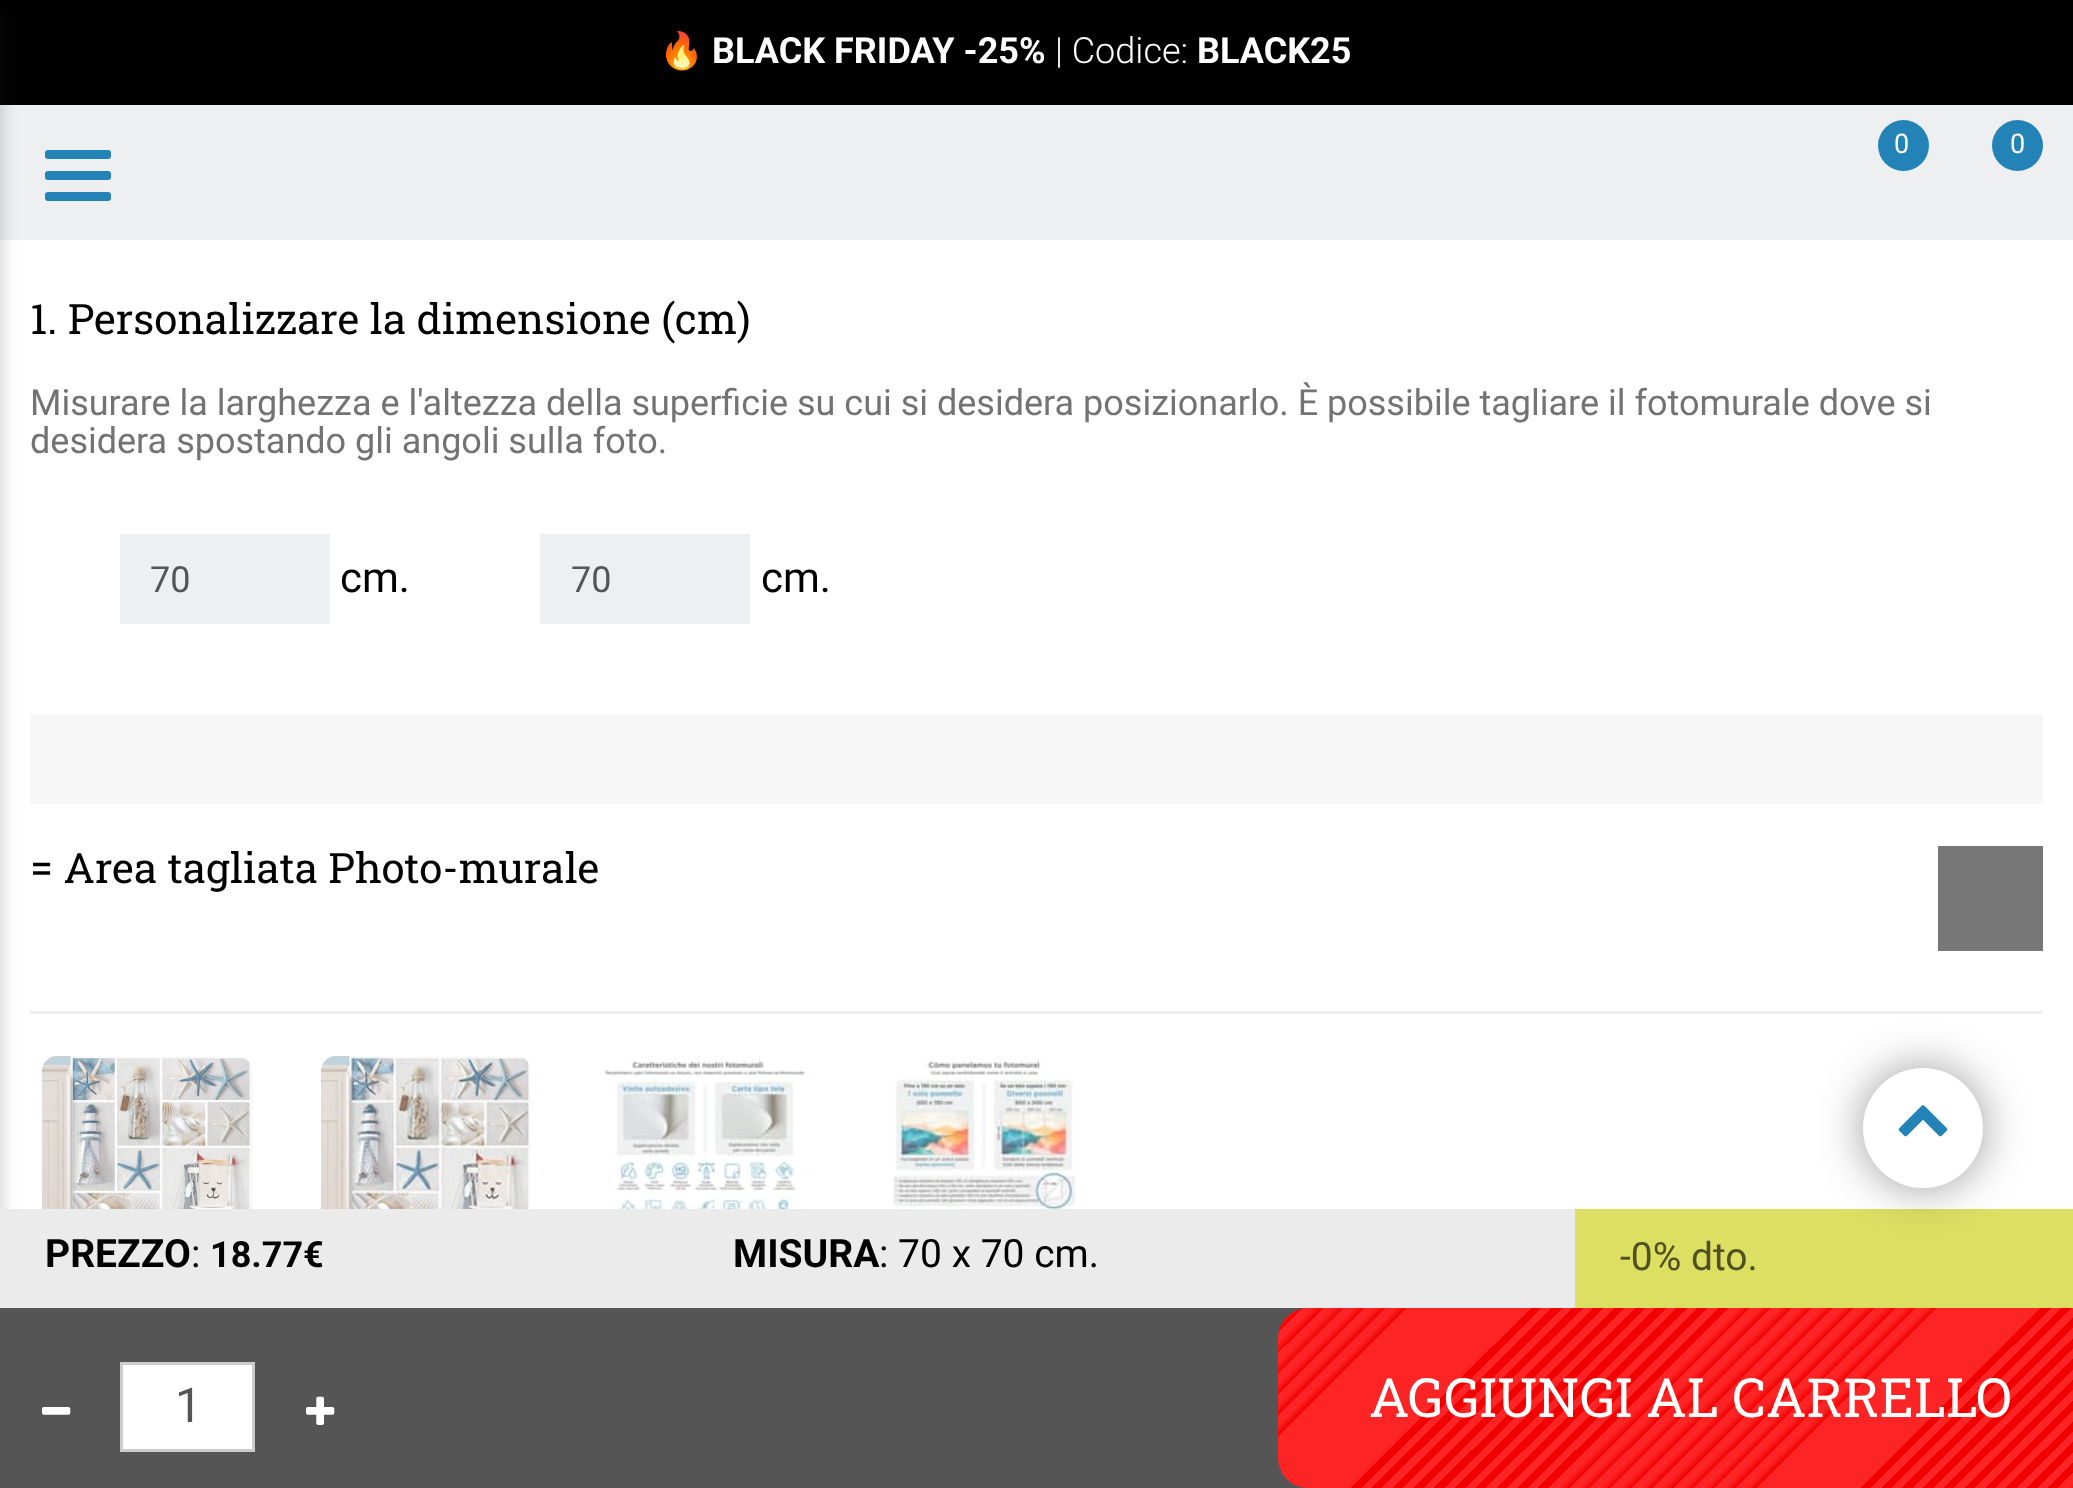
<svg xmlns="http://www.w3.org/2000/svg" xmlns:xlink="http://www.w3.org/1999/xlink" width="2073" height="1488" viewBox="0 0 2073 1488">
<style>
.cls-1{font:36px Noto Color Emoji;fill:#ffffff}
.cls-2{font:bold 36px Roboto;fill:#ffffff}
.cls-3{font:300 36px Roboto;fill:#ffffff}
.cls-4{font:27px Roboto;fill:#ffffff}
.cls-5{font:42px Roboto Slab;fill:#000000}
.cls-6{font:36px Roboto;fill:#737373}
.cls-7{font:36px Roboto;fill:#555555}
.cls-8{font:42px Roboto;fill:#000000}
.cls-9{font:bold 39px Roboto;fill:#000000}
.cls-10{font:39px Roboto;fill:#000000}
.cls-11{font:bold 36px Roboto;fill:#000000}
.cls-12{font:39px Roboto;fill:#4e5120}
.cls-13{font:48px Roboto;fill:#555555}
.cls-14{font:54px Roboto Slab;fill:#ffffff}
</style>
<defs>
<linearGradient id="g1" gradientUnits="userSpaceOnUse" x1="1950" y1="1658" x2="1431" y2="1138"><stop offset="0" stop-color="#f20000"/><stop offset="0" stop-color="#f20000"/><stop offset="0.01" stop-color="#fc2424"/><stop offset="0.02" stop-color="#fc2424"/><stop offset="0.02" stop-color="#f20000"/><stop offset="0.02" stop-color="#f20000"/><stop offset="0.03" stop-color="#fc2424"/><stop offset="0.04" stop-color="#fc2424"/><stop offset="0.04" stop-color="#f20000"/><stop offset="0.04" stop-color="#f20000"/><stop offset="0.05" stop-color="#fc2424"/><stop offset="0.06" stop-color="#fc2424"/><stop offset="0.06" stop-color="#f20000"/><stop offset="0.07" stop-color="#f20000"/><stop offset="0.07" stop-color="#fc2424"/><stop offset="0.08" stop-color="#fc2424"/><stop offset="0.08" stop-color="#f20000"/><stop offset="0.09" stop-color="#f20000"/><stop offset="0.09" stop-color="#fc2424"/><stop offset="0.1" stop-color="#fc2424"/><stop offset="0.1" stop-color="#f20000"/><stop offset="0.11" stop-color="#f20000"/><stop offset="0.11" stop-color="#fc2424"/><stop offset="0.12" stop-color="#fc2424"/><stop offset="0.12" stop-color="#f20000"/><stop offset="0.13" stop-color="#f20000"/><stop offset="0.13" stop-color="#fc2424"/><stop offset="0.14" stop-color="#fc2424"/><stop offset="0.14" stop-color="#f20000"/><stop offset="0.15" stop-color="#f20000"/><stop offset="0.15" stop-color="#fc2424"/><stop offset="0.16" stop-color="#fc2424"/><stop offset="0.16" stop-color="#f20000"/><stop offset="0.17" stop-color="#f20000"/><stop offset="0.17" stop-color="#fc2424"/><stop offset="0.18" stop-color="#fc2424"/><stop offset="0.18" stop-color="#f20000"/><stop offset="0.19" stop-color="#f20000"/><stop offset="0.19" stop-color="#fc2424"/><stop offset="0.2" stop-color="#fc2424"/><stop offset="0.2" stop-color="#f20000"/><stop offset="0.21" stop-color="#f20000"/><stop offset="0.21" stop-color="#fc2424"/><stop offset="0.22" stop-color="#fc2424"/><stop offset="0.22" stop-color="#f20000"/><stop offset="0.23" stop-color="#f20000"/><stop offset="0.23" stop-color="#fc2424"/><stop offset="0.24" stop-color="#fc2424"/><stop offset="0.24" stop-color="#f20000"/><stop offset="0.25" stop-color="#f20000"/><stop offset="0.25" stop-color="#fc2424"/><stop offset="0.27" stop-color="#fc2424"/><stop offset="0.27" stop-color="#f20000"/><stop offset="0.27" stop-color="#f20000"/><stop offset="0.27" stop-color="#fc2424"/><stop offset="0.29" stop-color="#fc2424"/><stop offset="0.29" stop-color="#f20000"/><stop offset="0.29" stop-color="#f20000"/><stop offset="0.29" stop-color="#fc2424"/><stop offset="0.31" stop-color="#fc2424"/><stop offset="0.31" stop-color="#f20000"/><stop offset="0.31" stop-color="#f20000"/><stop offset="0.31" stop-color="#fc2424"/><stop offset="0.33" stop-color="#fc2424"/><stop offset="0.33" stop-color="#f20000"/><stop offset="0.33" stop-color="#f20000"/><stop offset="0.33" stop-color="#fc2424"/><stop offset="0.35" stop-color="#fc2424"/><stop offset="0.35" stop-color="#f20000"/><stop offset="0.35" stop-color="#f20000"/><stop offset="0.36" stop-color="#fc2424"/><stop offset="0.37" stop-color="#fc2424"/><stop offset="0.37" stop-color="#f20000"/><stop offset="0.37" stop-color="#f20000"/><stop offset="0.38" stop-color="#fc2424"/><stop offset="0.39" stop-color="#fc2424"/><stop offset="0.39" stop-color="#f20000"/><stop offset="0.39" stop-color="#f20000"/><stop offset="0.4" stop-color="#fc2424"/><stop offset="0.41" stop-color="#fc2424"/><stop offset="0.41" stop-color="#f20000"/><stop offset="0.41" stop-color="#f20000"/><stop offset="0.42" stop-color="#fc2424"/><stop offset="0.43" stop-color="#fc2424"/><stop offset="0.43" stop-color="#f20000"/><stop offset="0.43" stop-color="#f20000"/><stop offset="0.44" stop-color="#fc2424"/><stop offset="0.45" stop-color="#fc2424"/><stop offset="0.45" stop-color="#f20000"/><stop offset="0.45" stop-color="#f20000"/><stop offset="0.46" stop-color="#fc2424"/><stop offset="0.47" stop-color="#fc2424"/><stop offset="0.47" stop-color="#f20000"/><stop offset="0.47" stop-color="#f20000"/><stop offset="0.48" stop-color="#fc2424"/><stop offset="0.49" stop-color="#fc2424"/><stop offset="0.49" stop-color="#f20000"/><stop offset="0.49" stop-color="#f20000"/><stop offset="0.5" stop-color="#fc2424"/><stop offset="0.51" stop-color="#fc2424"/><stop offset="0.51" stop-color="#f20000"/><stop offset="0.51" stop-color="#f20000"/><stop offset="0.52" stop-color="#fc2424"/><stop offset="0.53" stop-color="#fc2424"/><stop offset="0.53" stop-color="#f20000"/><stop offset="0.53" stop-color="#f20000"/><stop offset="0.54" stop-color="#fc2424"/><stop offset="0.55" stop-color="#fc2424"/><stop offset="0.55" stop-color="#f20000"/><stop offset="0.56" stop-color="#f20000"/><stop offset="0.56" stop-color="#fc2424"/><stop offset="0.57" stop-color="#fc2424"/><stop offset="0.57" stop-color="#f20000"/><stop offset="0.58" stop-color="#f20000"/><stop offset="0.58" stop-color="#fc2424"/><stop offset="0.59" stop-color="#fc2424"/><stop offset="0.59" stop-color="#f20000"/><stop offset="0.6" stop-color="#f20000"/><stop offset="0.6" stop-color="#fc2424"/><stop offset="0.61" stop-color="#fc2424"/><stop offset="0.61" stop-color="#f20000"/><stop offset="0.62" stop-color="#f20000"/><stop offset="0.62" stop-color="#fc2424"/><stop offset="0.63" stop-color="#fc2424"/><stop offset="0.63" stop-color="#f20000"/><stop offset="0.64" stop-color="#f20000"/><stop offset="0.64" stop-color="#fc2424"/><stop offset="0.65" stop-color="#fc2424"/><stop offset="0.65" stop-color="#f20000"/><stop offset="0.66" stop-color="#f20000"/><stop offset="0.66" stop-color="#fc2424"/><stop offset="0.67" stop-color="#fc2424"/><stop offset="0.67" stop-color="#f20000"/><stop offset="0.68" stop-color="#f20000"/><stop offset="0.68" stop-color="#fc2424"/><stop offset="0.69" stop-color="#fc2424"/><stop offset="0.69" stop-color="#f20000"/><stop offset="0.7" stop-color="#f20000"/><stop offset="0.7" stop-color="#fc2424"/><stop offset="0.71" stop-color="#fc2424"/><stop offset="0.71" stop-color="#f20000"/><stop offset="0.72" stop-color="#f20000"/><stop offset="0.72" stop-color="#fc2424"/><stop offset="0.73" stop-color="#fc2424"/><stop offset="0.73" stop-color="#f20000"/><stop offset="0.74" stop-color="#f20000"/><stop offset="0.74" stop-color="#fc2424"/><stop offset="0.76" stop-color="#fc2424"/><stop offset="0.76" stop-color="#f20000"/><stop offset="0.76" stop-color="#f20000"/><stop offset="0.76" stop-color="#fc2424"/><stop offset="0.78" stop-color="#fc2424"/><stop offset="0.78" stop-color="#f20000"/><stop offset="0.78" stop-color="#f20000"/><stop offset="0.78" stop-color="#fc2424"/><stop offset="0.8" stop-color="#fc2424"/><stop offset="0.8" stop-color="#f20000"/><stop offset="0.8" stop-color="#f20000"/><stop offset="0.8" stop-color="#fc2424"/><stop offset="0.82" stop-color="#fc2424"/><stop offset="0.82" stop-color="#f20000"/><stop offset="0.82" stop-color="#f20000"/><stop offset="0.82" stop-color="#fc2424"/><stop offset="0.84" stop-color="#fc2424"/><stop offset="0.84" stop-color="#f20000"/><stop offset="0.84" stop-color="#f20000"/><stop offset="0.84" stop-color="#fc2424"/><stop offset="0.86" stop-color="#fc2424"/><stop offset="0.86" stop-color="#f20000"/><stop offset="0.86" stop-color="#f20000"/><stop offset="0.87" stop-color="#fc2424"/><stop offset="0.88" stop-color="#fc2424"/><stop offset="0.88" stop-color="#f20000"/><stop offset="0.88" stop-color="#f20000"/><stop offset="0.89" stop-color="#fc2424"/><stop offset="0.9" stop-color="#fc2424"/><stop offset="0.9" stop-color="#f20000"/><stop offset="0.9" stop-color="#f20000"/><stop offset="0.91" stop-color="#fc2424"/><stop offset="0.92" stop-color="#fc2424"/><stop offset="0.92" stop-color="#f20000"/><stop offset="0.92" stop-color="#f20000"/><stop offset="0.93" stop-color="#fc2424"/><stop offset="0.94" stop-color="#fc2424"/><stop offset="0.94" stop-color="#f20000"/><stop offset="0.94" stop-color="#f20000"/><stop offset="0.95" stop-color="#fc2424"/><stop offset="0.96" stop-color="#fc2424"/><stop offset="0.96" stop-color="#f20000"/><stop offset="0.96" stop-color="#f20000"/><stop offset="0.97" stop-color="#fc2424"/><stop offset="0.98" stop-color="#fc2424"/><stop offset="0.98" stop-color="#f20000"/><stop offset="0.98" stop-color="#f20000"/><stop offset="0.99" stop-color="#fc2424"/><stop offset="1" stop-color="#fc2424"/></linearGradient>
</defs>
<rect width="100%" height="100%" fill="#ffffff"/>
<rect fill="#eeeff1" x="0" y="105" width="2073" height="135"/>
<rect fill="#000000" x="0" y="0" width="2073" height="105"/>
<rect fill="#323232" fill-opacity="0.2" filter="blur(7.5px)" x="-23" y="9" width="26" height="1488"/>
<rect fill="#2383b6" x="45" y="150" width="66" height="9" rx="3"/>
<rect fill="#2383b6" x="45" y="171" width="66" height="9" rx="3"/>
<rect fill="#2383b6" x="45" y="192" width="66" height="9" rx="3"/>
<circle fill="#2383b6" cx="1903.5" cy="145.5" r="25.5"/>
<circle fill="#2383b6" cx="2017.5" cy="145.5" r="25.5"/>
<rect fill="#eeeff1" x="120" y="534" width="210" height="90"/>
<rect fill="#eeeff1" x="540" y="534" width="210" height="90"/>
<rect fill="#f7f7f7" x="30" y="714" width="2013" height="90"/>
<rect fill="#777777" x="1938" y="846" width="105" height="105"/>
<rect fill="#eeeeee" x="30" y="1011" width="2013" height="3"/>
<image xlink:href="image0.png" x="42" y="1056" width="210" height="153"/>
<image xlink:href="image1.png" x="321" y="1056" width="210" height="153"/>
<image xlink:href="image2.png" x="600" y="1056" width="210" height="153"/>
<image xlink:href="image3.png" x="892" y="1056" width="185" height="153"/>
<rect fill="#ebebeb" x="0" y="1209" width="1575" height="99"/>
<rect fill="#dddf63" x="1575" y="1209" width="498" height="99"/>
<rect fill="#555555" x="0" y="1308" width="1308" height="180"/>
<image xlink:href="image4.png" x="42" y="1407" width="29" height="8"/>
<rect fill="#ffffff" stroke="#cccccc" stroke-width="3" x="121.5" y="1363.5" width="132" height="87"/>
<image xlink:href="image5.png" x="306" y="1396" width="29" height="29"/>
<rect fill="url(#g1)" x="1278" y="1308" width="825" height="180" rx="30"/>
<rect fill="#000000" fill-opacity="0.4" filter="blur(22.5px)" x="1863" y="1068" width="120" height="120" rx="60"/>
<circle fill="#ffffff" cx="1923" cy="1128" r="60"/>
<image xlink:href="image6.png" x="1898" y="1105" width="50" height="32"/>
<text class="cls-1" x="659" y="63">🔥</text>
<text class="cls-2" x="712" y="63">BLACK FRIDAY -25%</text>
<text class="cls-3" x="1055" y="63">| Codice:</text>
<text class="cls-2" x="1197" y="63">BLACK25</text>
<text class="cls-4" x="1894" y="153">0</text>
<text class="cls-4" x="2010" y="153">0</text>
<text class="cls-5" x="30" y="334">1. Personalizzare la dimensione (cm)</text>
<text class="cls-6"><tspan x="30" y="415">Misurare la larghezza e l'altezza della superficie su cui si desidera posizionarlo. È possibile tagliare il fotomurale dove si</tspan><tspan x="30" y="453">desidera spostando gli angoli sulla foto.</tspan></text>
<text class="cls-7" x="150" y="592">70</text>
<text class="cls-8" x="340" y="592">cm.</text>
<text class="cls-7" x="571" y="592">70</text>
<text class="cls-8" x="761" y="592">cm.</text>
<text class="cls-5" x="30" y="883">= Area tagliata Photo-murale</text>
<text class="cls-9" x="45" y="1267">PREZZO</text>
<text class="cls-10" x="191" y="1267">:</text>
<text class="cls-11" x="210" y="1267">18.77€</text>
<text class="cls-9" x="733" y="1267">MISURA</text>
<text class="cls-10" x="879" y="1267">: 70 x 70 cm.</text>
<text class="cls-12" x="1620" y="1270">-0% dto.</text>
<text class="cls-13" x="175" y="1422">1</text>
<text class="cls-14" x="1369" y="1417">AGGIUNGI AL CARRELLO</text>
</svg>
